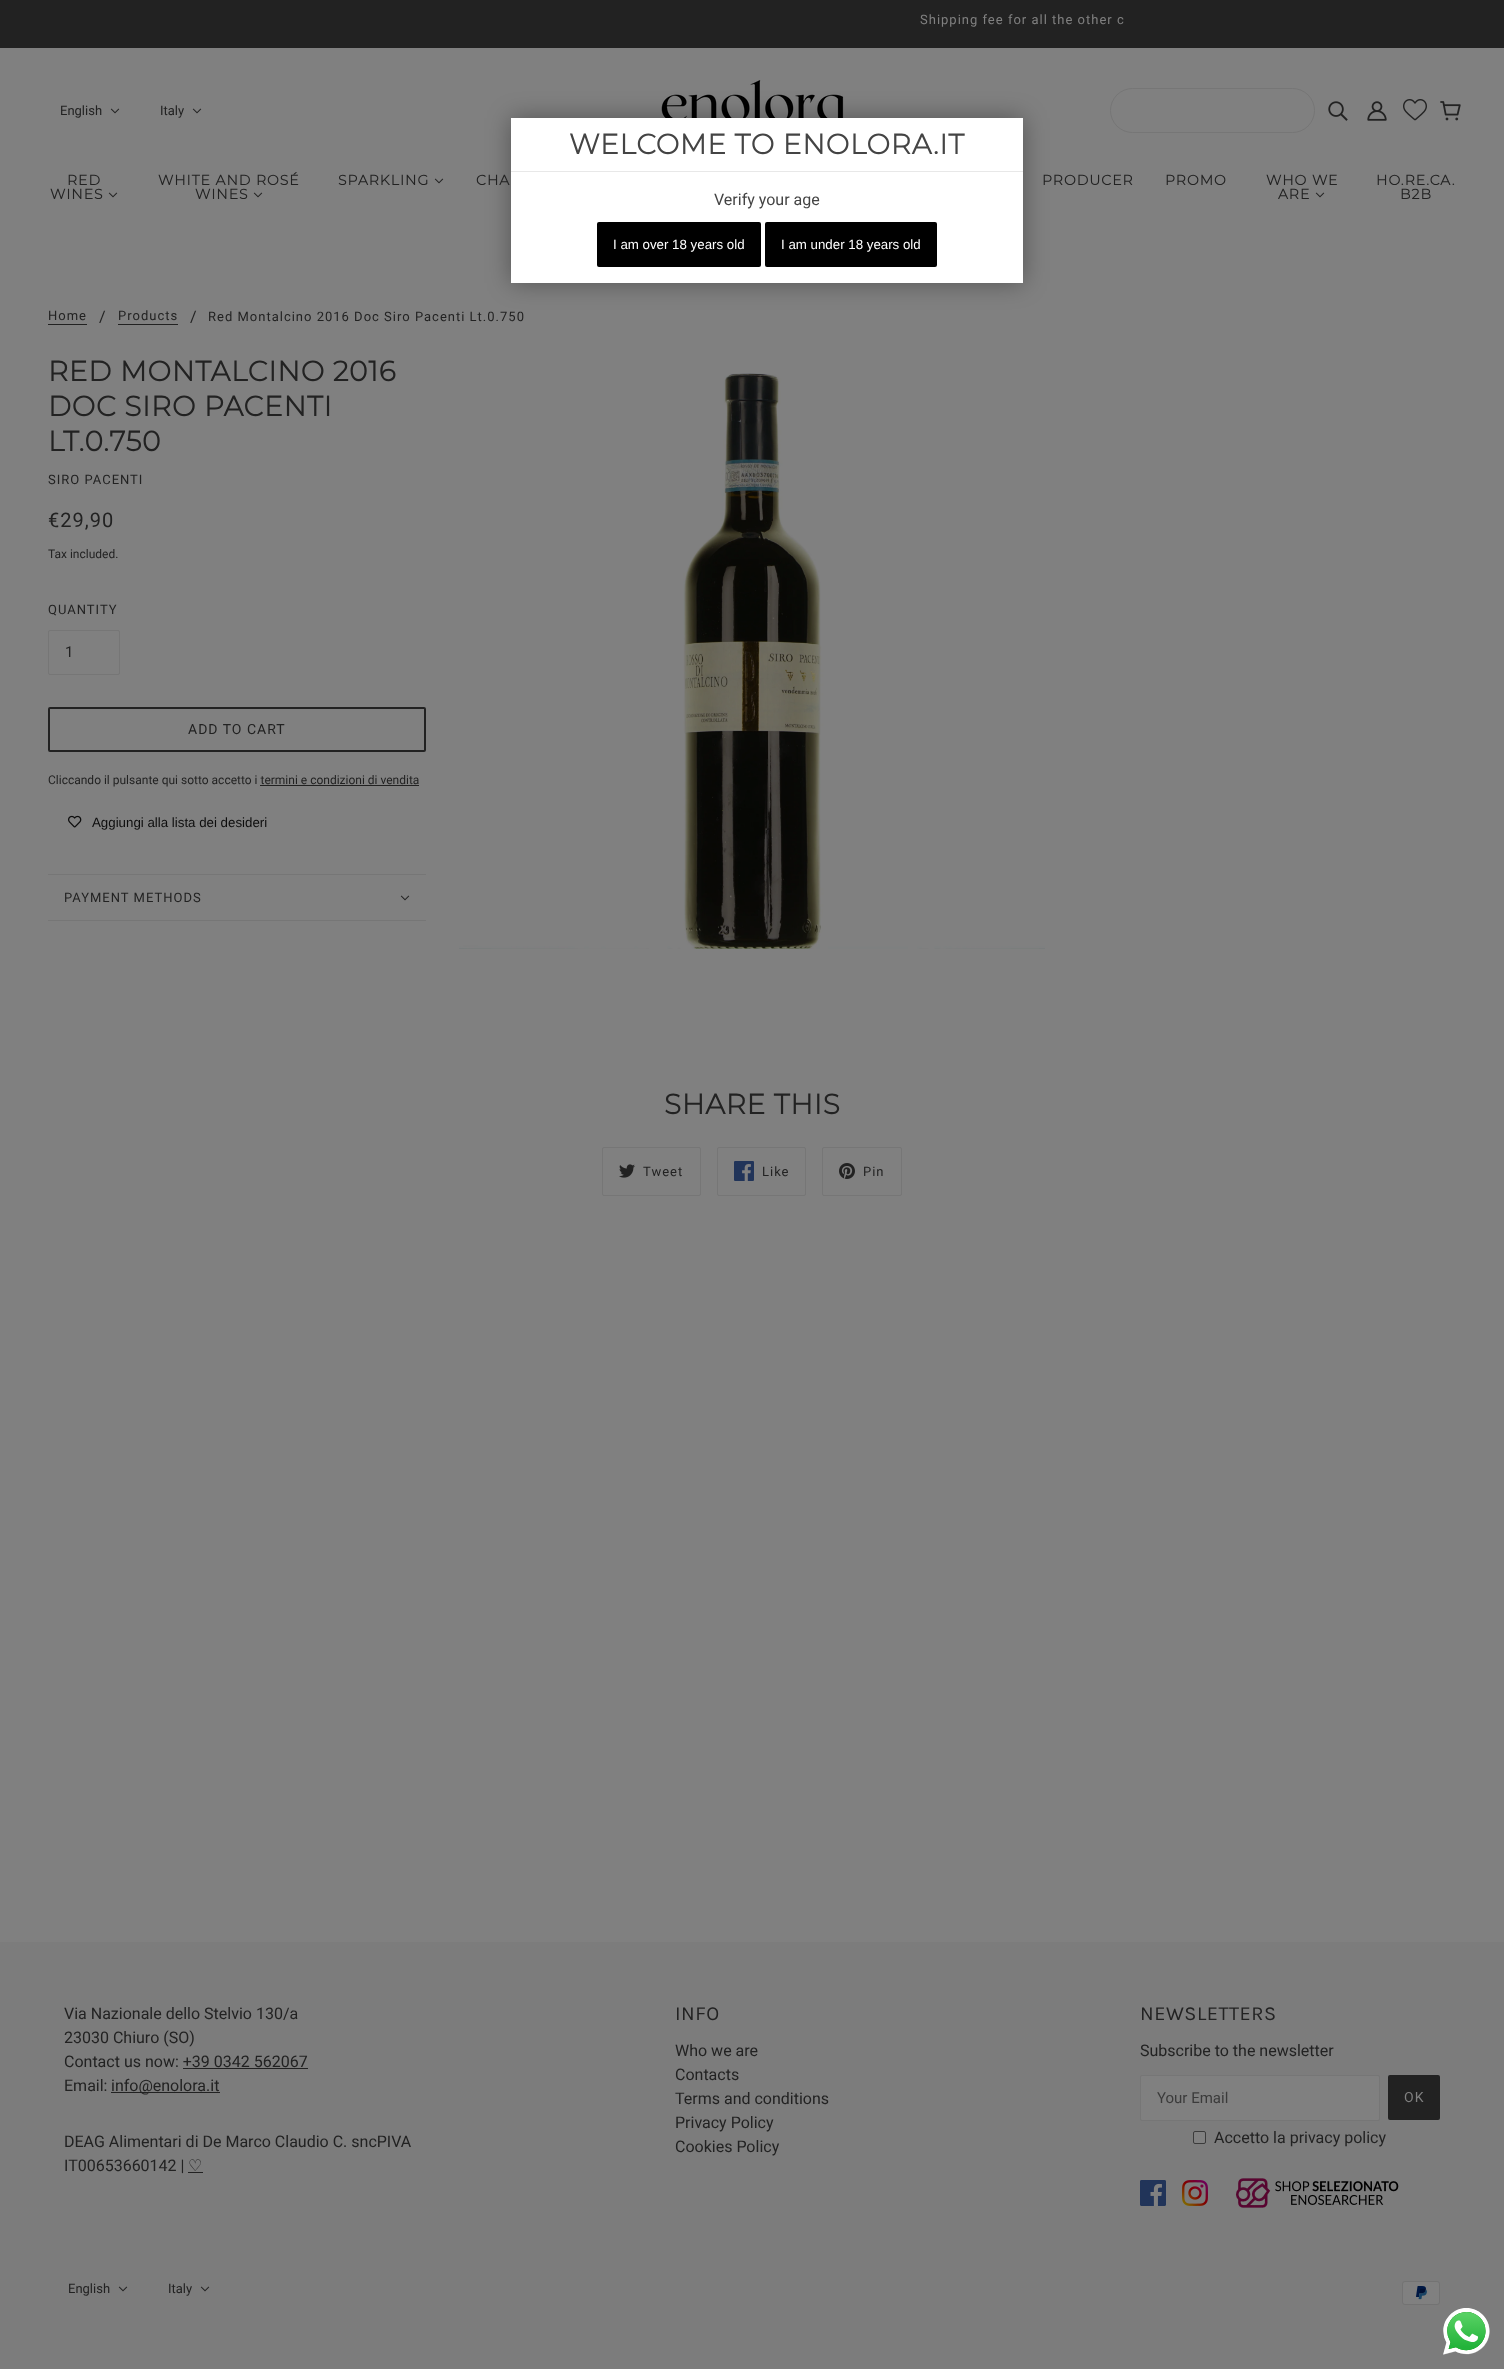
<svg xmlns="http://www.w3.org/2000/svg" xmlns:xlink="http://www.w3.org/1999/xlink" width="1504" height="2369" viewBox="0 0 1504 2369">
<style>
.cls-1{font:13px Roboto;letter-spacing:1px;fill:#808080}
.cls-2{font:13px Roboto;fill:#222222}
.cls-3{font:bold 14px Montserrat;letter-spacing:1px;fill:#222222}
.cls-4{font:bold 28px Montserrat;letter-spacing:0.7px;fill:#444444}
.cls-5{font:16px Roboto;fill:#444444}
.cls-6{font:13.3px Liberation Sans;fill:#ffffff}
.cls-7{font:13px Roboto;letter-spacing:1px;fill:#222222}
.cls-8{font:16px Roboto;fill:#222222}
.cls-9{font:bold 28px Montserrat;letter-spacing:0.7px;fill:#222222}
.cls-10{font:20px Roboto;letter-spacing:1px;fill:#222222}
.cls-11{font:12px Roboto;fill:#222222}
.cls-12{font:15px Roboto;fill:#222222}
.cls-13{font:14px Roboto;letter-spacing:1px;fill:#222222}
.cls-14{font:13.3px Liberation Sans;fill:#0d0d0d}
.cls-15{font:16px DejaVu Sans;fill:#222222}
.cls-16{font:20px Karla;letter-spacing:0.5px;fill:#222222}
.cls-17{font:15px Roboto;fill:#3b3b3b}
.cls-18{font:14px Roboto;letter-spacing:1px;fill:#808080}
</style>
<rect width="100%" height="100%" fill="#808080"/>
<rect fill="#222222" x="0" y="0" width="1504" height="48"/>
<image xlink:href="image0.png" x="110" y="108" width="10" height="6"/>
<image xlink:href="image0.png" x="192" y="108" width="10" height="6"/>
<image xlink:href="image1.png" x="661" y="80" width="183" height="38"/>
<rect fill="none" stroke="#767676" x="1110.5" y="88.5" width="204" height="44" rx="22"/>
<image xlink:href="image2.png" x="1328" y="101" width="20" height="20"/>
<image xlink:href="image3.png" x="1367" y="101" width="20" height="20"/>
<image xlink:href="image4.png" x="1403" y="99" width="24" height="22"/>
<image xlink:href="image5.png" x="1440" y="101" width="21" height="20"/>
<image xlink:href="image0.png" x="108" y="192" width="10" height="6"/>
<image xlink:href="image0.png" x="253" y="192" width="10" height="6"/>
<image xlink:href="image0.png" x="434" y="178" width="10" height="6"/>
<image xlink:href="image0.png" x="1315" y="192" width="10" height="6"/>
<rect fill="#000000" fill-opacity="0.35" filter="blur(12px)" x="511" y="118" width="512" height="165"/>
<rect fill="#ffffff" x="511" y="118" width="512" height="165"/>
<rect fill="#e8e8e8" x="511" y="171" width="512" height="1"/>
<rect fill="#000000" x="597" y="222" width="164" height="45" rx="2"/>
<rect fill="#000000" x="765" y="222" width="172" height="45" rx="2"/>
<rect fill="#222222" x="48" y="324" width="39" height="1"/>
<rect fill="#222222" x="118" y="324" width="60" height="1"/>
<rect fill="none" stroke="#767676" x="48.5" y="630.5" width="71" height="44" rx="1.5"/>
<rect fill="none" stroke="#222222" stroke-width="2" x="49" y="708" width="376" height="43" rx="1"/>
<rect fill="#222222" x="260" y="785" width="159" height="1"/>
<image xlink:href="image6.png" x="68" y="815" width="14" height="13"/>
<rect fill="#767676" x="48" y="874" width="378" height="1"/>
<rect fill="#767676" x="48" y="920" width="378" height="1"/>
<image xlink:href="image0.png" x="400" y="895" width="10" height="6"/>
<image xlink:href="image7.png" x="459" y="373" width="586" height="576"/>
<rect fill="none" stroke="#767676" x="602.5" y="1147.5" width="98" height="48" rx="1.5"/>
<image xlink:href="image8.png" x="619" y="1164" width="16" height="14"/>
<rect fill="none" stroke="#767676" x="717.5" y="1147.5" width="88" height="48" rx="1.5"/>
<image xlink:href="image9.png" x="734" y="1161" width="20" height="20"/>
<rect fill="none" stroke="#767676" x="822.5" y="1147.5" width="79" height="48" rx="1.5"/>
<image xlink:href="image10.png" x="839" y="1163" width="16" height="16"/>
<rect fill="#7c7c7c" x="0" y="1942" width="1504" height="427"/>
<rect fill="#222222" x="183" y="2068" width="125" height="1"/>
<rect fill="#222222" x="111" y="2092" width="109" height="1"/>
<rect fill="#222222" x="188" y="2172" width="15" height="1"/>
<rect fill="#808080" stroke="#767676" x="1140.5" y="2075.5" width="239" height="45" rx="1.5"/>
<rect fill="#222222" x="1388" y="2075" width="52" height="45" rx="2"/>
<rect fill="#808080" stroke="#3b3b3b" x="1193.5" y="2131.5" width="12" height="12" rx="1.5"/>
<image xlink:href="image11.png" x="1140" y="2180" width="26" height="26"/>
<image xlink:href="image12.png" x="1182" y="2180" width="26" height="26"/>
<image xlink:href="image13.png" x="1235" y="2178" width="164" height="30"/>
<image xlink:href="image14.png" x="118" y="2286" width="10" height="6"/>
<image xlink:href="image14.png" x="200" y="2286" width="10" height="6"/>
<image xlink:href="image15.png" x="1402" y="2281" width="38" height="24"/>
<image xlink:href="image16.png" x="1443" y="2308" width="47" height="47"/>
<text class="cls-1" x="920" y="24">Shipping fee for all the other c</text>
<text class="cls-2" x="60" y="115">English</text>
<text class="cls-2" x="160" y="115">Italy</text>
<text class="cls-3" x="67" y="185">RED</text>
<text class="cls-3" x="50" y="199">WINES</text>
<text class="cls-3" x="158" y="185">WHITE AND ROSÉ</text>
<text class="cls-3" x="195" y="199">WINES</text>
<text class="cls-3" x="338" y="185">SPARKLING</text>
<text class="cls-3" x="476" y="185">CHA</text>
<text class="cls-3" x="1042" y="185">PRODUCER</text>
<text class="cls-3" x="1165" y="185">PROMO</text>
<text class="cls-3" x="1266" y="185">WHO WE</text>
<text class="cls-3" x="1278" y="199">ARE</text>
<text class="cls-3" x="1376" y="185">HO.RE.CA.</text>
<text class="cls-3" x="1400" y="199">B2B</text>
<text class="cls-4" x="569" y="154">WELCOME TO ENOLORA.IT</text>
<text class="cls-5" x="714" y="205">Verify your age</text>
<text class="cls-6" x="613" y="249">I am over 18 years old</text>
<text class="cls-6" x="781" y="249">I am under 18 years old</text>
<text class="cls-7" x="48" y="320">Home</text>
<text class="cls-8" x="99" y="322">/</text>
<text class="cls-7" x="118" y="320">Products</text>
<text class="cls-8" x="190" y="322">/</text>
<text class="cls-7" x="208" y="321">Red Montalcino 2016 Doc Siro Pacenti Lt.0.750</text>
<text class="cls-9"><tspan x="48" y="381">RED MONTALCINO 2016</tspan><tspan x="48" y="416">DOC SIRO PACENTI</tspan><tspan x="48" y="451">LT.0.750</tspan></text>
<text class="cls-7" x="48" y="484">SIRO PACENTI</text>
<text class="cls-10" x="48" y="527">€29,90</text>
<text class="cls-11" x="48" y="558">Tax included.</text>
<text class="cls-7" x="48" y="614">QUANTITY</text>
<text class="cls-12" x="65" y="657">1</text>
<text class="cls-13" x="188" y="734">ADD TO CART</text>
<text class="cls-11" x="48" y="784">Cliccando il pulsante qui sotto accetto i termini e condizioni di vendita</text>
<text class="cls-14" x="92" y="827">Aggiungi alla lista dei desideri</text>
<text class="cls-7" x="64" y="902">PAYMENT METHODS</text>
<text class="cls-9" x="664" y="1114">SHARE THIS</text>
<text class="cls-7" x="643" y="1176">Tweet</text>
<text class="cls-7" x="762" y="1176">Like</text>
<text class="cls-7" x="863" y="1176">Pin</text>
<text class="cls-8"><tspan x="64" y="2019">Via Nazionale dello Stelvio 130/a</tspan><tspan x="64" y="2043">23030 Chiuro (SO)</tspan><tspan x="64" y="2067">Contact us now: +39 0342 562067</tspan><tspan x="64" y="2091">Email:</tspan></text>
<text class="cls-8" x="111" y="2091">info@enolora.it</text>
<text class="cls-8"><tspan x="64" y="2147">DEAG Alimentari di De Marco Claudio C. sncPIVA</tspan><tspan x="64" y="2171">IT00653660142 |</tspan></text>
<text class="cls-15" x="188" y="2171">♡</text>
<text class="cls-16" x="675" y="2020">INFO</text>
<text class="cls-8"><tspan x="675" y="2056">Who we are</tspan><tspan x="675" y="2080">Contacts</tspan><tspan x="675" y="2104">Terms and conditions</tspan><tspan x="675" y="2128">Privacy Policy</tspan><tspan x="675" y="2152">Cookies Policy</tspan></text>
<text class="cls-16" x="1140" y="2020">NEWSLETTERS</text>
<text class="cls-8" x="1140" y="2056">Subscribe to the newsletter</text>
<text class="cls-17" x="1157" y="2103">Your Email</text>
<text class="cls-18" x="1404" y="2102">OK</text>
<text class="cls-8" x="1214" y="2143">Accetto la privacy policy</text>
<text class="cls-2" x="68" y="2293">English</text>
<text class="cls-2" x="168" y="2293">Italy</text>
</svg>
